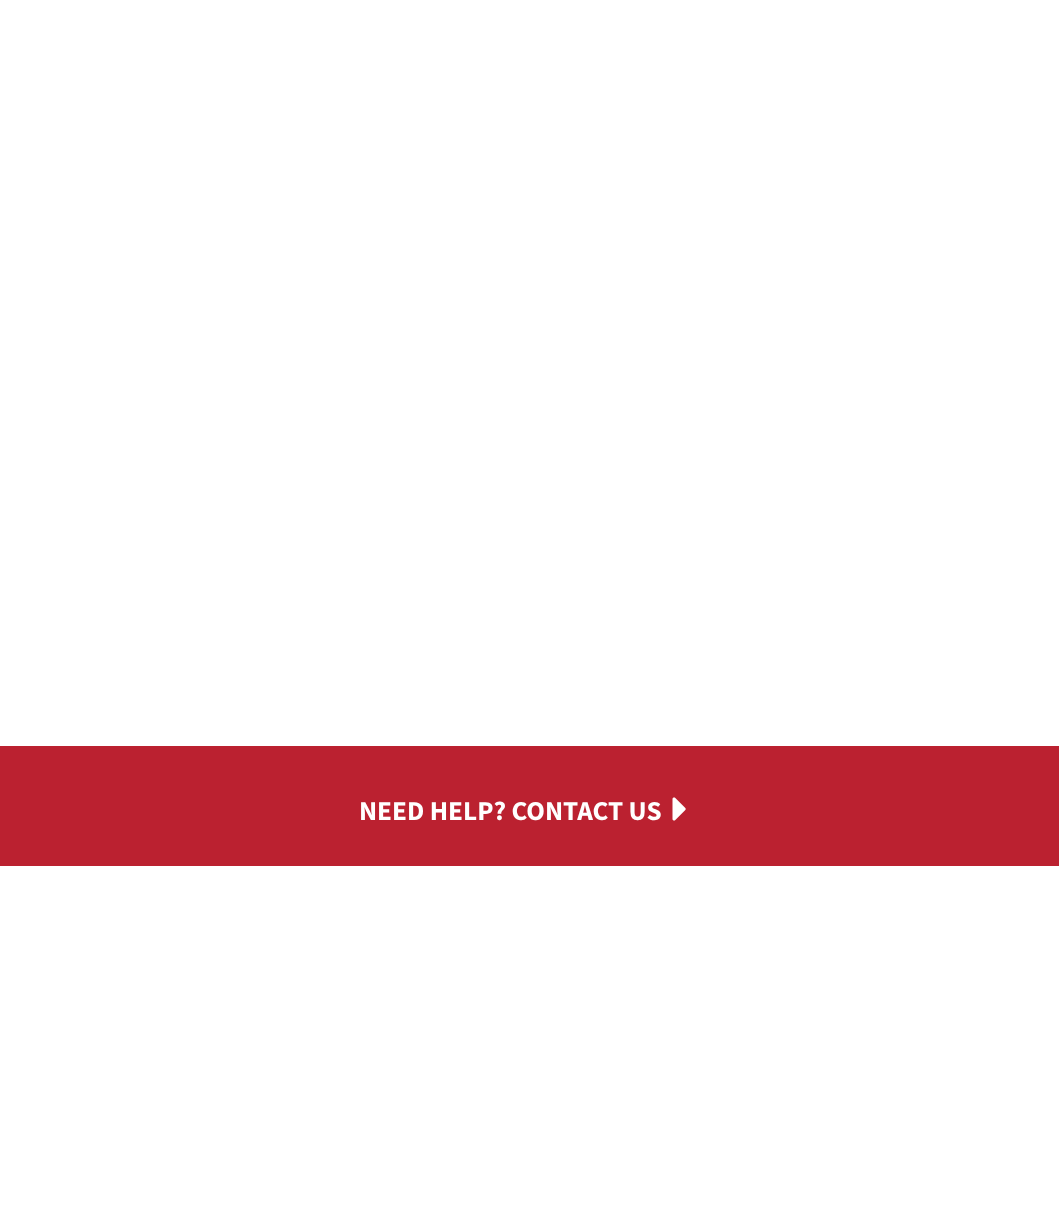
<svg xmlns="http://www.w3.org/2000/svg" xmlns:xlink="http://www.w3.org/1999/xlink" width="1059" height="1224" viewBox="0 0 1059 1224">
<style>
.cls-1{font:bold 27.25px Source Sans Pro;fill:#ffffff}
</style>
<rect width="100%" height="100%" fill="#ffffff"/>
<rect fill="#bb2130" x="0" y="746" width="1059" height="120"/>
<image xlink:href="image0.png" x="672" y="797" width="14" height="24"/>
<text class="cls-1" x="359" y="820">NEED HELP? CONTACT US</text>
</svg>
